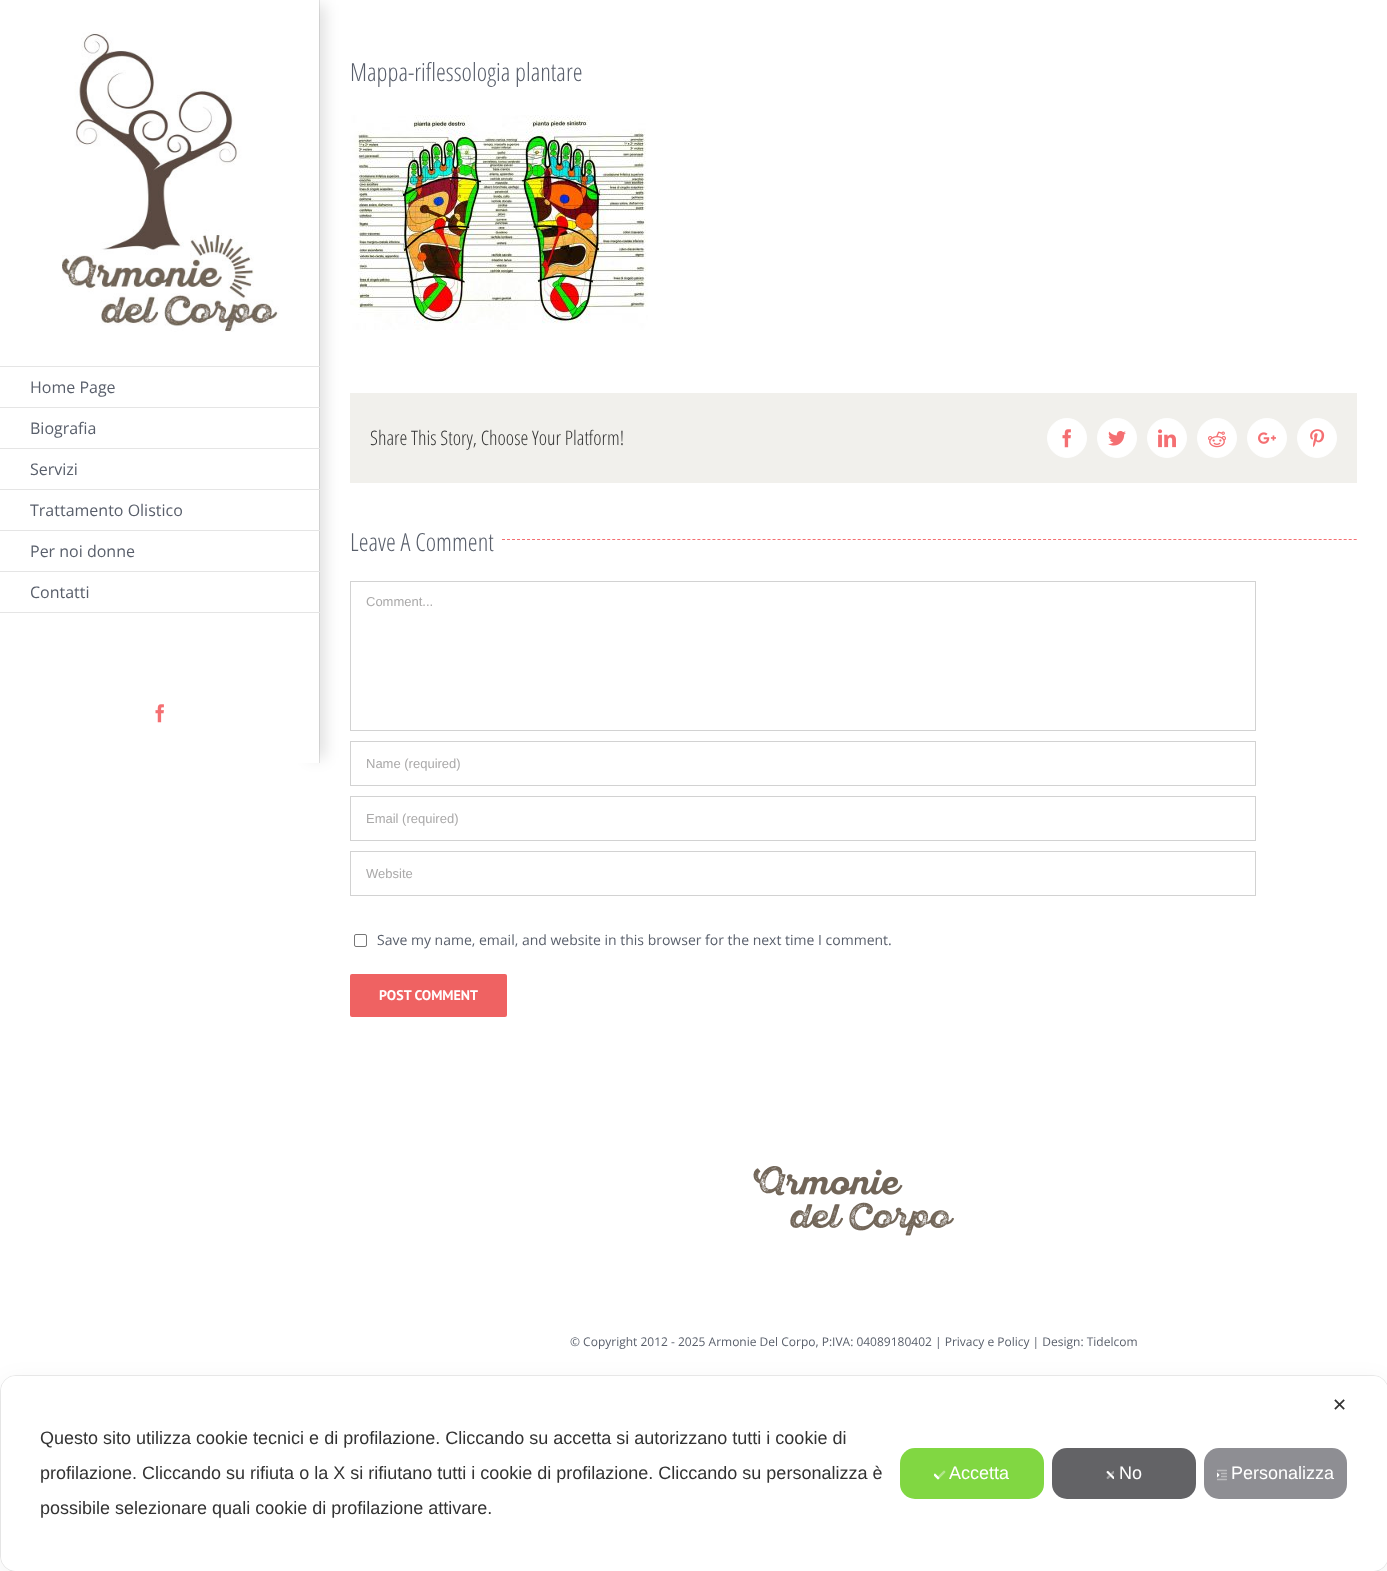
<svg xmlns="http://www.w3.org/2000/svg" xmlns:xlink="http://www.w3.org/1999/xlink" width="1387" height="1571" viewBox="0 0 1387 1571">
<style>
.cls-1{font:16px Open Sans;fill:#595f6b}
.cls-2{font:300 25px Open Sans Condensed;fill:#595f6b}
.cls-3{font:300 20px Open Sans Condensed;fill:#333333}
.cls-4{font:13px Liberation Sans;fill:#aaa9a9}
.cls-5{font:14px Open Sans;fill:#595f6b}
.cls-6{font:bold 14px PT Sans;fill:#ffffff}
.cls-7{font:12px Open Sans;fill:#595f6b}
.cls-8{font:18px DejaVu Sans;fill:#333333}
.cls-9{font:18px Liberation Sans;fill:#333333}
.cls-10{font:18px Liberation Sans;fill:#ffffff}
</style>
<defs>
<clipPath id="clip1"><path d="M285 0H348V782H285ZM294 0H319V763H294Z" clip-rule="evenodd"/></clipPath>
</defs>
<rect width="100%" height="100%" fill="#ffffff"/>
<image xlink:href="image0.png" x="62" y="32" width="218" height="300"/>
<rect fill="#e5e5e5" x="319" y="0" width="1" height="763"/>
<g clip-path="url(#clip1)">
<rect fill="#000000" fill-opacity="0.14" filter="blur(7.5px)" x="309" y="5" width="15" height="753"/>
</g>
<rect fill="#e5e5e5" x="0" y="366" width="320" height="1"/>
<rect fill="#e5e5e5" x="0" y="407" width="320" height="1"/>
<rect fill="#e5e5e5" x="0" y="448" width="320" height="1"/>
<rect fill="#e5e5e5" x="0" y="489" width="320" height="1"/>
<rect fill="#e5e5e5" x="0" y="530" width="320" height="1"/>
<rect fill="#e5e5e5" x="0" y="571" width="320" height="1"/>
<rect fill="#e5e5e5" x="0" y="612" width="320" height="1"/>
<image xlink:href="image1.png" x="155" y="704" width="9" height="19"/>
<image xlink:href="image2.png" x="350" y="115" width="298" height="215"/>
<rect fill="#f1f0ec" x="350" y="393" width="1007" height="90"/>
<circle fill="#ffffff" stroke="#ffffff" cx="1067" cy="438" r="19.5"/>
<image xlink:href="image1.png" x="1062" y="429" width="9" height="19"/>
<circle fill="#ffffff" stroke="#ffffff" cx="1117" cy="438" r="19.5"/>
<image xlink:href="image3.png" x="1108" y="430" width="18" height="16"/>
<circle fill="#ffffff" stroke="#ffffff" cx="1167" cy="438" r="19.5"/>
<image xlink:href="image4.png" x="1158" y="429" width="18" height="19"/>
<circle fill="#ffffff" stroke="#ffffff" cx="1217" cy="438" r="19.5"/>
<image xlink:href="image5.png" x="1208" y="431" width="18" height="17"/>
<circle fill="#ffffff" stroke="#ffffff" cx="1267" cy="438" r="19.5"/>
<image xlink:href="image6.png" x="1258" y="432" width="18" height="12"/>
<circle fill="#ffffff" stroke="#ffffff" cx="1317" cy="438" r="19.5"/>
<image xlink:href="image7.png" x="1310" y="429" width="15" height="19"/>
<path fill="none" stroke="#f46f72" stroke-dasharray="3 2.01" d="M502 539.5H1357"/>
<rect fill="none" stroke="#d2d2d2" x="350.5" y="581.5" width="905" height="149"/>
<rect fill="none" stroke="#d2d2d2" x="350.5" y="741.5" width="905" height="44"/>
<rect fill="none" stroke="#d2d2d2" x="350.5" y="796.5" width="905" height="44"/>
<rect fill="none" stroke="#d2d2d2" x="350.5" y="851.5" width="905" height="44"/>
<rect fill="none" stroke="#767676" x="354.5" y="934.5" width="12" height="12" rx="1.5"/>
<rect fill="#ef6262" x="350" y="974" width="157" height="43" rx="2"/>
<image xlink:href="image8.png" x="753" y="1166" width="201" height="70"/>
<rect fill="none" stroke="#ebebeb" x="0.5" y="1375.5" width="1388" height="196" rx="15.5"/>
<rect fill="#000000" fill-opacity="0.05" filter="blur(12px)" x="1" y="1382" width="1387" height="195" rx="15"/>
<rect fill="#ffffff" x="1" y="1376" width="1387" height="195" rx="15"/>
<rect fill="#81d742" x="900" y="1448" width="144" height="51" rx="15"/>
<image xlink:href="image9.png" x="934" y="1470" width="12" height="10"/>
<rect fill="#636366" x="1052" y="1448" width="144" height="51" rx="15"/>
<image xlink:href="image10.png" x="1106" y="1470" width="8" height="10"/>
<rect fill="#8e8e93" x="1204" y="1448" width="143" height="51" rx="15"/>
<image xlink:href="image11.png" x="1217" y="1469" width="10" height="12"/>
<text class="cls-1" x="30" y="393">Home Page</text>
<text class="cls-1" x="30" y="434">Biografia</text>
<text class="cls-1" x="30" y="475">Servizi</text>
<text class="cls-1" x="30" y="516">Trattamento Olistico</text>
<text class="cls-1" x="30" y="557">Per noi donne</text>
<text class="cls-1" x="30" y="598">Contatti</text>
<text class="cls-2" x="350" y="81">Mappa-riflessologia plantare</text>
<text class="cls-3" x="370" y="445">Share This Story, Choose Your Platform!</text>
<text class="cls-2" x="350" y="551">Leave A Comment</text>
<text class="cls-4" x="366" y="606">Comment...</text>
<text class="cls-4" x="366" y="768">Name (required)</text>
<text class="cls-4" x="366" y="823">Email (required)</text>
<text class="cls-4" x="366" y="878">Website</text>
<text class="cls-5" x="377" y="945">Save my name, email, and website in this browser for the next time I comment.</text>
<text class="cls-6" x="379" y="1000">POST COMMENT</text>
<text class="cls-7" x="570" y="1346">© Copyright 2012 - 2025 Armonie Del Corpo, P:IVA: 04089180402 | Privacy e Policy | Design: Tidelcom</text>
<text class="cls-8" x="1332" y="1411">✕</text>
<text class="cls-9"><tspan x="40" y="1444">Questo sito utilizza cookie tecnici e di profilazione. Cliccando su accetta si autorizzano tutti i cookie di</tspan><tspan x="40" y="1479">profilazione. Cliccando su rifiuta o la X si rifiutano tutti i cookie di profilazione. Cliccando su personalizza è</tspan><tspan x="40" y="1514">possibile selezionare quali cookie di profilazione attivare.</tspan></text>
<text class="cls-10" x="949" y="1479">Accetta</text>
<text class="cls-10" x="1119" y="1479">No</text>
<text class="cls-10" x="1231" y="1479">Personalizza</text>
</svg>
